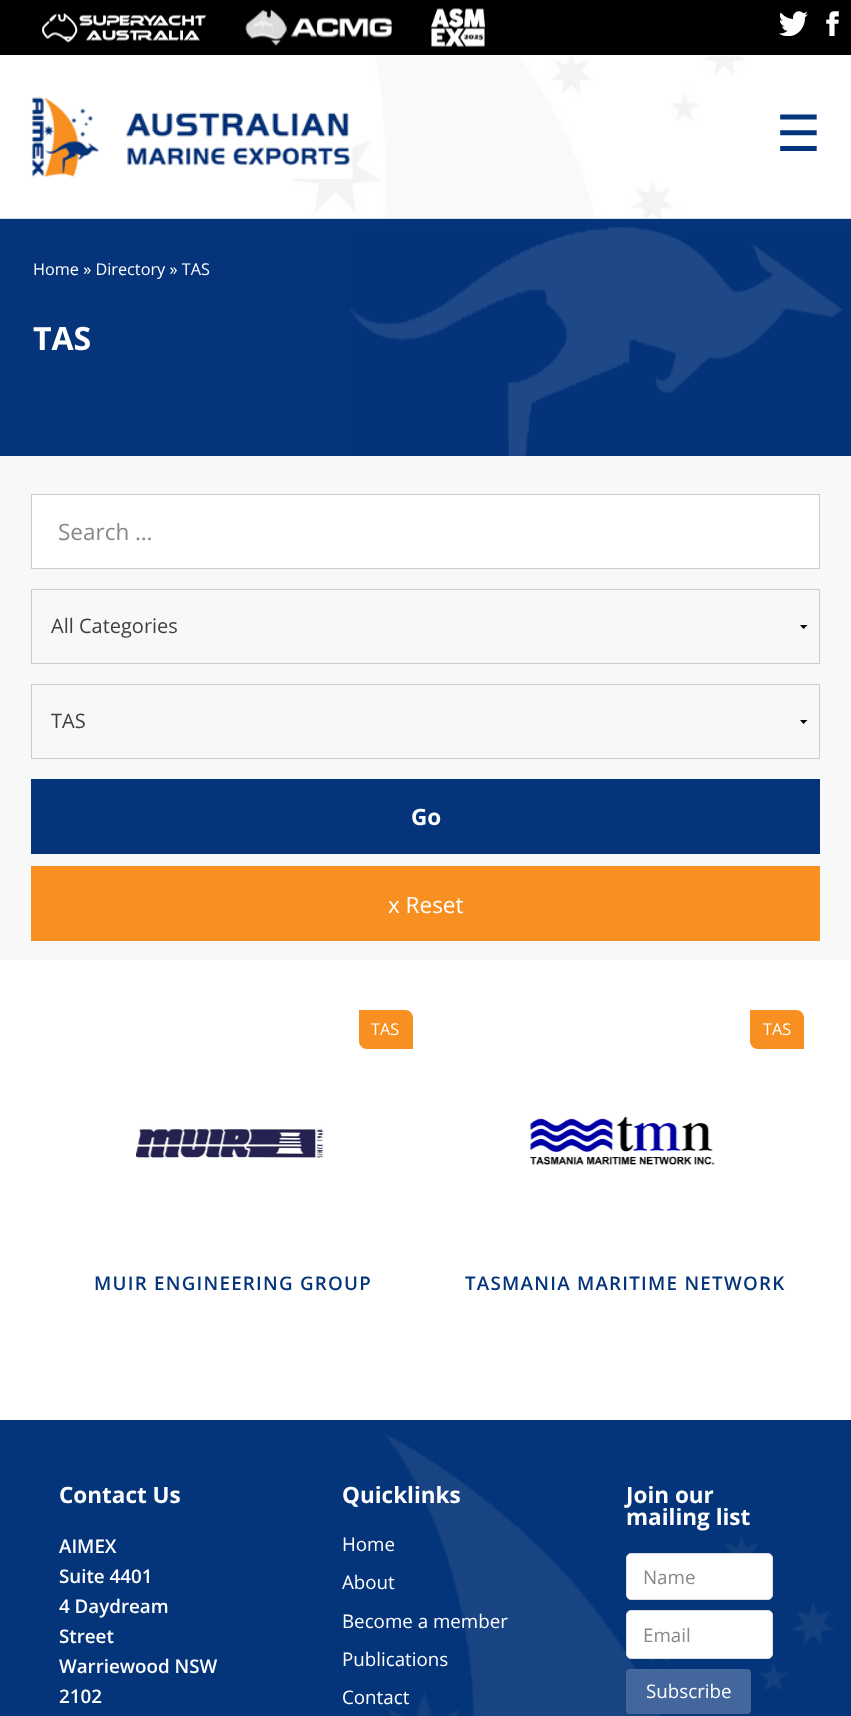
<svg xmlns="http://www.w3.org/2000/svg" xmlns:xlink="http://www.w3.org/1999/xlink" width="851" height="1716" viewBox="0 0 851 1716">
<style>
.cls-1{font:50px DejaVu Sans;fill:#04347a}
.cls-2{font:16.25px Open Sans;fill:#ffffff}
.cls-3{font:bold 32px Open Sans;fill:#ffffff}
.cls-4{font:22.5px Open Sans;fill:#888888}
.cls-5{font:20px Open Sans;fill:#3f3f3f}
.cls-6{font:bold 22.5px Open Sans;fill:#ffffff}
.cls-7{font:22.5px Open Sans;fill:#ffffff}
.cls-8{font:600 18.75px Open Sans;letter-spacing:1.25px;fill:#04347a}
.cls-9{font:600 18.75px Open Sans;fill:#ffffff}
.cls-10{font:18.75px Open Sans;fill:#ffffff}
.cls-11{font:18.75px Open Sans;fill:#888888}
</style>
<rect width="100%" height="100%" fill="#ffffff"/>
<rect fill="#dddddd" x="0" y="218" width="851" height="1"/>
<rect fill="#000000" x="0" y="0" width="851" height="55"/>
<image xlink:href="image0.png" x="42" y="13" width="165" height="30"/>
<image xlink:href="image1.png" x="245" y="9" width="147" height="37"/>
<image xlink:href="image2.png" x="431" y="8" width="54" height="39"/>
<image xlink:href="image3.png" x="779" y="11" width="29" height="25"/>
<image xlink:href="image4.png" x="826" y="11" width="13" height="25"/>
<image xlink:href="image5.png" x="291" y="56" width="454" height="162"/>
<image xlink:href="image6.png" x="31" y="97" width="322" height="82"/>
<rect fill="#05347a" x="0" y="219" width="851" height="237"/>
<image xlink:href="image7.png" x="345" y="227" width="506" height="229"/>
<rect fill="#f8f8f8" x="0" y="456" width="851" height="504"/>
<rect fill="#ffffff" stroke="#cccccc" x="31.5" y="494.5" width="788" height="74"/>
<path fill="#000000" d="M807.5 625L803.5 629L800 625Z"/>
<rect fill="none" stroke="#cccccc" x="31.5" y="589.5" width="788" height="74"/>
<path fill="#000000" d="M807.5 720L803.5 724L800 720Z"/>
<rect fill="none" stroke="#cccccc" x="31.5" y="684.5" width="788" height="74"/>
<rect fill="#05347a" x="31" y="779" width="789" height="75"/>
<rect fill="#f79021" x="31" y="866" width="789" height="75"/>
<path fill="#f79021" d="M359 1010H405C409.5 1010 413 1013.5 413 1018V1049H367C362.5 1049 359 1045.5 359 1041Z"/>
<image xlink:href="image8.png" x="136" y="1127" width="188" height="31"/>
<path fill="#f79021" d="M750 1010H796C800.5 1010 804 1013.5 804 1018V1049H758C753.5 1049 750 1045.5 750 1041Z"/>
<image xlink:href="image9.png" x="529" y="1116" width="186" height="49"/>
<rect fill="#04347a" x="0" y="1420" width="851" height="296"/>
<image xlink:href="image10.png" x="383" y="1433" width="452" height="283"/>
<rect fill="#ffffff" stroke="#dddddd" x="626.5" y="1553.5" width="146" height="46" rx="4.5"/>
<rect fill="#ffffff" stroke="#dddddd" x="626.5" y="1610.5" width="146" height="48" rx="4.5"/>
<rect fill="#43679c" x="626" y="1669" width="125" height="45" rx="4"/>
<text class="cls-1" x="776" y="151">☰</text>
<text class="cls-2" x="33" y="275">Home » Directory » TAS</text>
<text class="cls-3" x="33" y="350">TAS</text>
<text class="cls-4" x="58" y="540">Search …</text>
<text class="cls-5" x="51" y="633">All Categories</text>
<text class="cls-5" x="51" y="728">TAS</text>
<text class="cls-6" x="411" y="825">Go</text>
<text class="cls-7" x="388" y="913">x Reset</text>
<text class="cls-2" x="371" y="1035">TAS</text>
<text class="cls-8" x="94" y="1290">MUIR ENGINEERING GROUP</text>
<text class="cls-2" x="763" y="1035">TAS</text>
<text class="cls-8" x="465" y="1290">TASMANIA MARITIME NETWORK</text>
<text class="cls-6" x="59" y="1503">Contact Us</text>
<text class="cls-9"><tspan x="59" y="1553">AIMEX</tspan><tspan x="59" y="1583">Suite 4401</tspan><tspan x="59" y="1613">4 Daydream</tspan><tspan x="59" y="1643">Street</tspan><tspan x="59" y="1673">Warriewood NSW</tspan><tspan x="59" y="1703">2102</tspan></text>
<text class="cls-6" x="342" y="1503">Quicklinks</text>
<text class="cls-10" x="342" y="1551">Home</text>
<text class="cls-10" x="342" y="1589">About</text>
<text class="cls-10" x="342" y="1628">Become a member</text>
<text class="cls-10" x="342" y="1666">Publications</text>
<text class="cls-10" x="342" y="1704">Contact</text>
<text class="cls-6"><tspan x="626" y="1503">Join our</tspan><tspan x="626" y="1525">mailing list</tspan></text>
<text class="cls-11" x="643" y="1584">Name</text>
<text class="cls-11" x="643" y="1642">Email</text>
<text class="cls-10" x="646" y="1698">Subscribe</text>
</svg>
